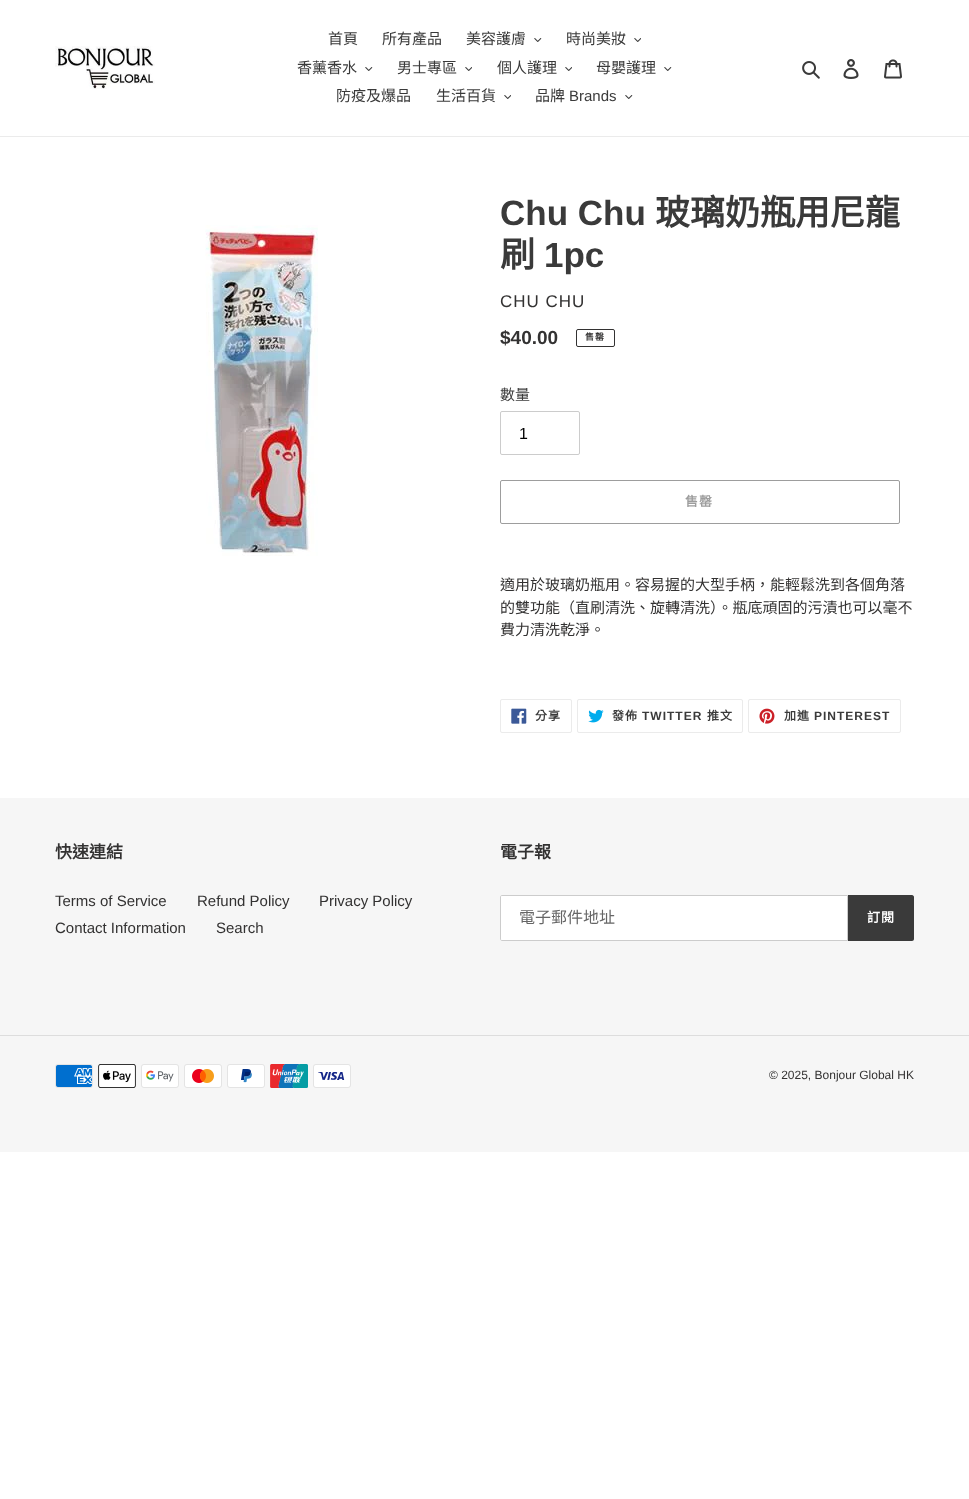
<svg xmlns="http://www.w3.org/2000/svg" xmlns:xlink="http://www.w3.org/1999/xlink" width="969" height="1499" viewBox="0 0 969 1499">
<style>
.cls-1{font:15px Noto Sans CJK TC;fill:#3a3a3a}
.cls-2{font:15px Liberation Sans;fill:#3a3a3a}
.cls-3{font:bold 35px Liberation Sans;fill:#3a3a3a}
.cls-4{font:bold 35px Noto Sans CJK TC;fill:#3a3a3a}
.cls-5{font:17px Liberation Sans;letter-spacing:1px;fill:#333232}
.cls-6{font:bold 19px Liberation Sans;fill:#333232}
.cls-7{font:bold 9px Noto Sans CJK TC;letter-spacing:1px;fill:#333232}
.cls-8{font:16px Liberation Sans;fill:#000000}
.cls-9{font:bold 13px Noto Sans CJK TC;letter-spacing:1px;fill:#9d9d9d}
.cls-10{font:15px Noto Sans CJK TC;fill:#333232}
.cls-11{font:bold 12px Noto Sans CJK TC;letter-spacing:1px;fill:#3a3a3a}
.cls-12{font:bold 12px Liberation Sans;letter-spacing:1px;fill:#3a3a3a}
.cls-13{font:bold 17px Noto Sans CJK TC;fill:#333232}
.cls-14{font:15px Liberation Sans;fill:#333232}
.cls-15{font:16px Noto Sans CJK TC;fill:#666666}
.cls-16{font:bold 13px Noto Sans CJK TC;letter-spacing:1px;fill:#ffffff}
.cls-17{font:12px Liberation Sans;fill:#333232}
</style>
<rect width="100%" height="100%" fill="#ffffff"/>
<rect fill="#ebebeb" x="0" y="136" width="969" height="1"/>
<image xlink:href="image0.png" x="55" y="46" width="100" height="43"/>
<image xlink:href="image1.png" x="534" y="38" width="8" height="4"/>
<image xlink:href="image2.png" x="634" y="38" width="7" height="4"/>
<image xlink:href="image1.png" x="365" y="67" width="8" height="4"/>
<image xlink:href="image2.png" x="465" y="67" width="7" height="4"/>
<image xlink:href="image2.png" x="565" y="67" width="7" height="4"/>
<image xlink:href="image1.png" x="664" y="67" width="8" height="4"/>
<image xlink:href="image2.png" x="504" y="95" width="7" height="4"/>
<image xlink:href="image1.png" x="625" y="95" width="8" height="4"/>
<image xlink:href="image3.png" x="802" y="61" width="18" height="18"/>
<image xlink:href="image4.png" x="843" y="59" width="16" height="20"/>
<image xlink:href="image5.png" x="884" y="59" width="18" height="20"/>
<image xlink:href="image6.png" x="205" y="225" width="113" height="331"/>
<rect fill="none" stroke="#333232" x="576.5" y="329.5" width="38" height="17" rx="1.5"/>
<rect fill="none" stroke="#cccccc" x="500.5" y="411.5" width="79" height="43" rx="1.5"/>
<rect fill="none" stroke="#9d9d9d" x="500.5" y="480.5" width="399" height="43" rx="1.5"/>
<rect fill="none" stroke="#ebebeb" x="500.5" y="699.5" width="71" height="33" rx="1.5"/>
<image xlink:href="image7.png" x="511" y="708" width="16" height="16"/>
<rect fill="none" stroke="#ebebeb" x="577.5" y="699.5" width="165" height="33" rx="1.5"/>
<image xlink:href="image8.png" x="588" y="709" width="16" height="14"/>
<rect fill="none" stroke="#ebebeb" x="748.5" y="699.5" width="152" height="33" rx="1.5"/>
<image xlink:href="image9.png" x="759" y="708" width="16" height="16"/>
<rect fill="#f6f6f6" x="0" y="798" width="969" height="354"/>
<path fill="#ffffff" stroke="#cccccc" d="M502 895.5H847.5V940.5H502C501 940.5 500.5 940 500.5 939V897C500.5 896 501 895.5 502 895.5Z"/>
<path fill="#3a3a3a" d="M848 895H912C913 895 914 896 914 897V939C914 940 913 941 912 941H848Z"/>
<rect fill="#dddddd" x="0" y="1035" width="969" height="1"/>
<image xlink:href="image10.png" x="55" y="1064" width="38" height="24"/>
<image xlink:href="image11.png" x="98" y="1064" width="38" height="24"/>
<image xlink:href="image12.png" x="141" y="1064" width="38" height="24"/>
<image xlink:href="image13.png" x="184" y="1064" width="38" height="24"/>
<image xlink:href="image14.png" x="227" y="1064" width="38" height="24"/>
<image xlink:href="image15.png" x="270" y="1064" width="38" height="24"/>
<image xlink:href="image16.png" x="313" y="1064" width="38" height="24"/>
<text class="cls-1" x="328" y="44">首頁</text>
<text class="cls-1" x="382" y="44">所有產品</text>
<text class="cls-1" x="466" y="44">美容護膚</text>
<text class="cls-1" x="566" y="44">時尚美妝</text>
<text class="cls-1" x="297" y="73">香薰香水</text>
<text class="cls-1" x="397" y="73">男士專區</text>
<text class="cls-1" x="497" y="73">個人護理</text>
<text class="cls-1" x="596" y="73">母嬰護理</text>
<text class="cls-1" x="336" y="101">防疫及爆品</text>
<text class="cls-1" x="436" y="101">生活百貨</text>
<text class="cls-1" x="535" y="101">品牌</text>
<text class="cls-2" x="569" y="101">Brands</text>
<text class="cls-3" x="500" y="225">Chu Chu</text>
<text class="cls-4" x="655" y="225">玻璃奶瓶用尼龍</text>
<text class="cls-4" x="500" y="267">刷</text>
<text class="cls-3" x="544" y="267">1pc</text>
<text class="cls-5" x="500" y="307">CHU CHU</text>
<text class="cls-6" x="500" y="344">$40.00</text>
<text class="cls-7" x="585" y="340">售罄</text>
<text class="cls-1" x="500" y="400">數量</text>
<text class="cls-8" x="519" y="439">1</text>
<text class="cls-9" x="685" y="506">售罄</text>
<text class="cls-10"><tspan x="500" y="590">適用於玻璃奶瓶用。容易握的大型手柄，能輕鬆洗到各個角落</tspan><tspan x="500" y="613">的雙功能（直刷清洗、旋轉清洗）。瓶底頑固的污漬也可以毫不</tspan><tspan x="500" y="635">費力清洗乾淨。</tspan></text>
<text class="cls-11" x="535" y="720">分享</text>
<text class="cls-11" x="612" y="720">發佈</text>
<text class="cls-12" x="642" y="720">TWITTER</text>
<text class="cls-11" x="707" y="720">推文</text>
<text class="cls-11" x="784" y="720">加進</text>
<text class="cls-12" x="814" y="720">PINTEREST</text>
<text class="cls-13" x="55" y="858">快速連結</text>
<text class="cls-14" x="55" y="906">Terms of Service</text>
<text class="cls-14" x="197" y="906">Refund Policy</text>
<text class="cls-14" x="319" y="906">Privacy Policy</text>
<text class="cls-14" x="55" y="933">Contact Information</text>
<text class="cls-14" x="216" y="933">Search</text>
<text class="cls-13" x="500" y="858">電子報</text>
<text class="cls-15" x="519" y="923">電子郵件地址</text>
<text class="cls-16" x="867" y="922">訂閱</text>
<text class="cls-17" x="769" y="1079">© 2025, Bonjour Global HK</text>
</svg>
